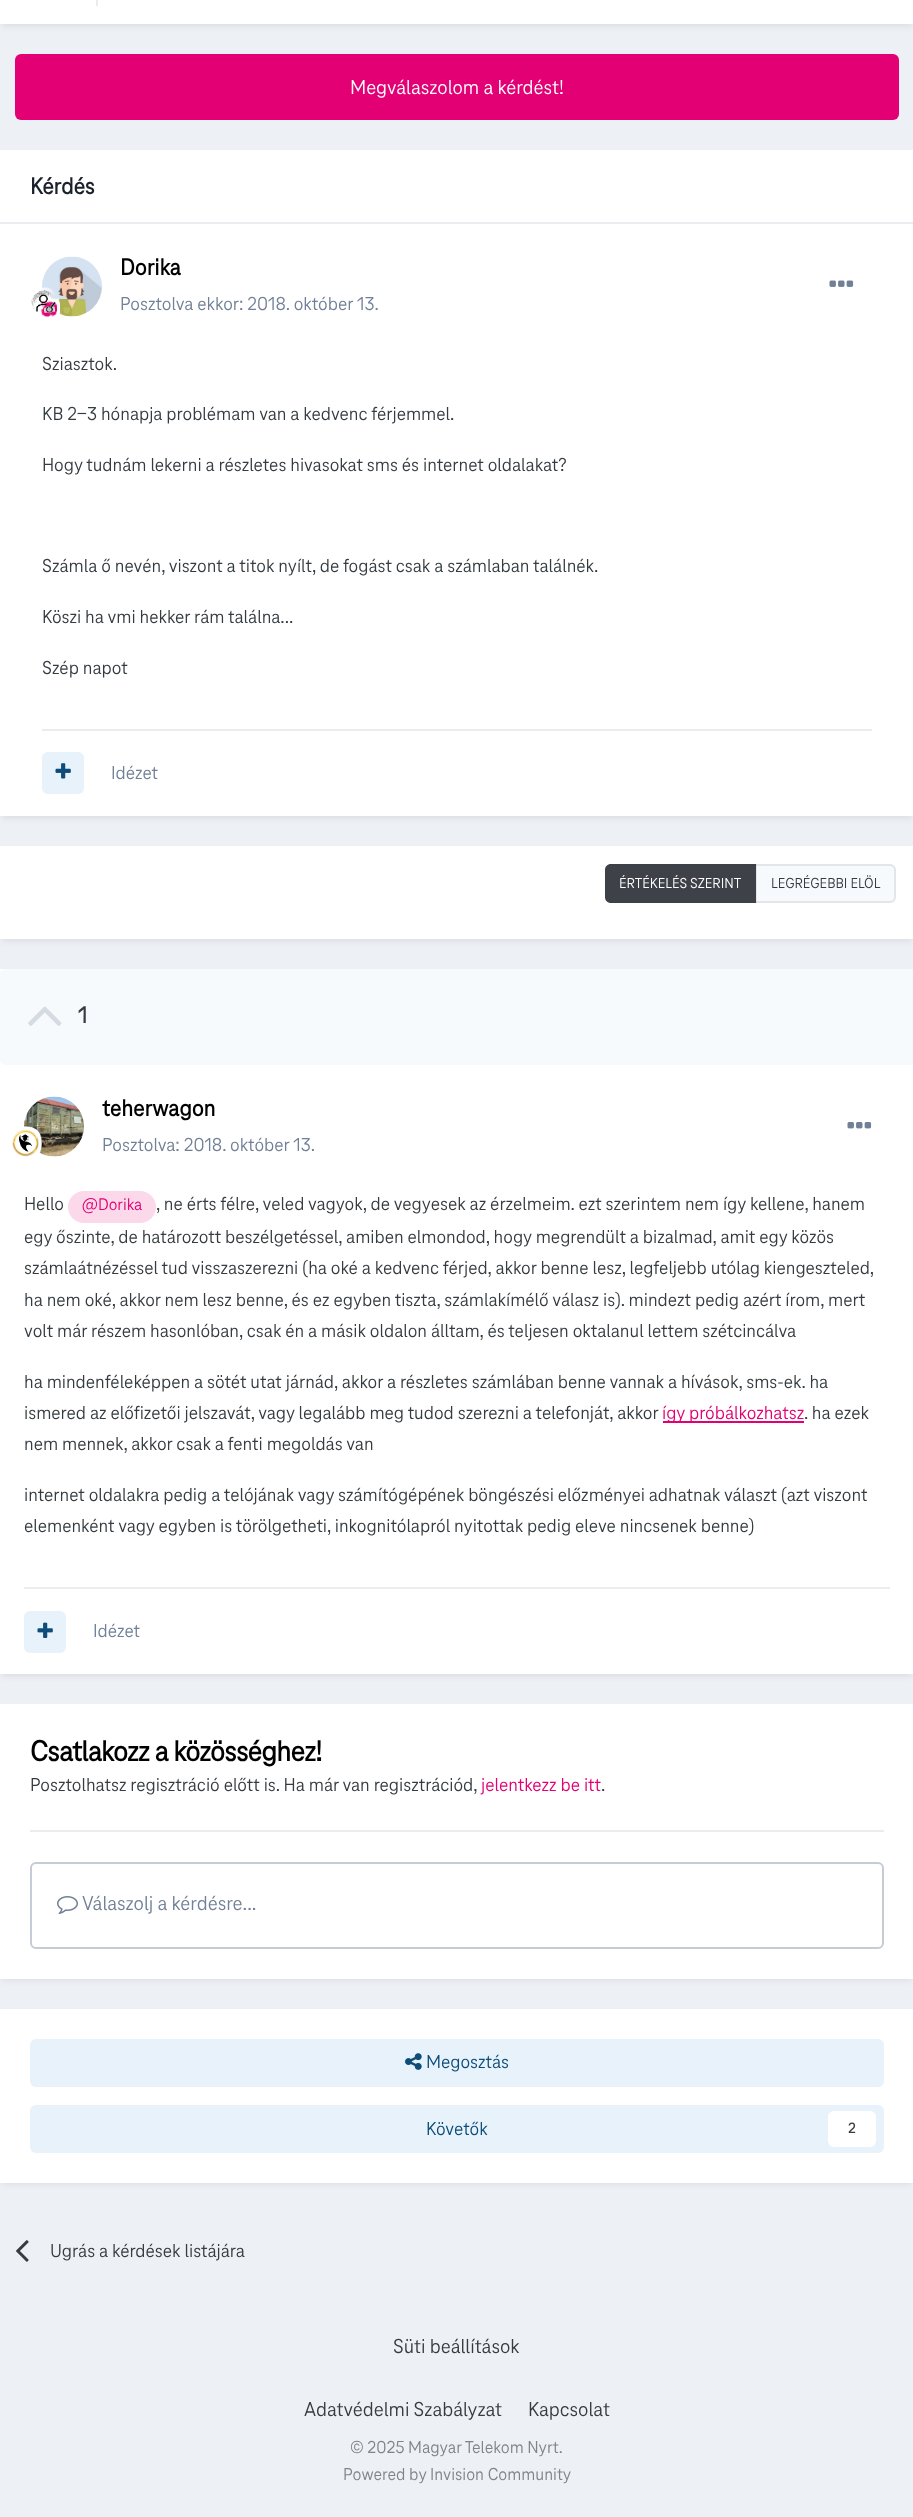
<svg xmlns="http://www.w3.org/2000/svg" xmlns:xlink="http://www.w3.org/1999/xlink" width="913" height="2517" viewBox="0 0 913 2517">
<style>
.cls-1{font:21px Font;fill:#ffffff}
.cls-2{font:bold 24px Font;fill:#1a202c}
.cls-3{font:bold 24px Font;fill:#000000}
.cls-4{font:19.5px Font;fill:#718096}
.cls-5{font:19.5px Font;fill:#353c41}
.cls-6{font:15px Font;fill:#ffffff}
.cls-7{font:15px Font;fill:#353c41}
.cls-8{font:bold 24px Font;fill:#353c41}
.cls-9{font:17.5px Font;fill:#e20074}
.cls-10{font:19.5px Font;fill:#e20074}
.cls-11{font:bold 30px Font;letter-spacing:-0.6px;fill:#000000}
.cls-12{font:21px Font;fill:#718096}
.cls-13{font:19.5px Font;fill:#0e4c79}
.cls-14{font:bold 15px Font;fill:#353c41}
.cls-15{font:21px Font;fill:#353c41}
.cls-16{font:18px Font;fill:#7f8489}
</style>
<rect width="100%" height="100%" fill="#edf0f4"/>
<rect fill="#2d3748" fill-opacity="0.1" filter="blur(3px)" x="2" y="-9" width="910" height="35"/>
<rect fill="#ffffff" x="0" y="0" width="913" height="24"/>
<rect fill="#eaecef" x="96" y="0" width="2" height="6"/>
<rect fill="#e20074" x="15" y="54" width="884" height="66" rx="6"/>
<rect fill="#2d3748" fill-opacity="0.1" filter="blur(3px)" x="2" y="155" width="910" height="663"/>
<rect fill="#ffffff" x="0" y="150" width="913" height="666"/>
<rect fill="#eaecef" x="0" y="222" width="913" height="2"/>
<image xlink:href="image0.png" x="42" y="256" width="60" height="61"/>
<image xlink:href="image1.png" x="31" y="287" width="29" height="30"/>
<image xlink:href="image2.png" x="829" y="280" width="25" height="7"/>
<rect fill="#ebecec" x="42" y="729" width="830" height="2"/>
<rect fill="#e8f2fa" x="42" y="752" width="42" height="42" rx="6"/>
<image xlink:href="image3.png" x="55" y="763" width="16" height="16"/>
<rect fill="#2d3748" fill-opacity="0.1" filter="blur(3px)" x="2" y="851" width="910" height="90"/>
<rect fill="#ffffff" x="0" y="846" width="913" height="93"/>
<path fill="#3e4148" d="M611 864H756V903H611C607.5 903 605 900.5 605 897V870C605 866.5 607.5 864 611 864Z"/>
<path fill="#f7fafc" d="M756 864H890C893.5 864 896 866.5 896 870V897C896 900.5 893.5 903 890 903H756Z"/>
<rect fill="#e5e8ea" x="756" y="864" width="1" height="39"/>
<rect fill="none" stroke="#353c41" stroke-opacity="0.1" stroke-width="2" x="606" y="865" width="289" height="37" rx="5"/>
<rect fill="#2d3748" fill-opacity="0.1" filter="blur(3px)" x="2" y="974" width="910" height="702"/>
<rect fill="#ffffff" x="0" y="969" width="913" height="705"/>
<path fill="#f7fafc" d="M6 969H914V1065H6C2.5 1065 0 1062.5 0 1059V975C0 971.5 2.5 969 6 969Z"/>
<image xlink:href="image4.png" x="28" y="1006" width="34" height="20"/>
<image xlink:href="image5.png" x="24" y="1096" width="60" height="61"/>
<image xlink:href="image6.png" x="12" y="1126" width="30" height="31"/>
<image xlink:href="image7.png" x="847" y="1122" width="25" height="7"/>
<rect fill="#fbd9ea" x="68" y="1191" width="88" height="32" rx="16"/>
<rect fill="#e20074" x="663" y="1421" width="141" height="2"/>
<rect fill="#ebecec" x="24" y="1587" width="866" height="2"/>
<rect fill="#e8f2fa" x="24" y="1611" width="42" height="42" rx="6"/>
<image xlink:href="image8.png" x="37" y="1622" width="16" height="16"/>
<rect fill="#2d3748" fill-opacity="0.1" filter="blur(3px)" x="2" y="1709" width="910" height="271"/>
<rect fill="#ffffff" x="0" y="1704" width="913" height="275"/>
<rect fill="#eaecef" x="30" y="1830" width="854" height="2"/>
<rect fill="none" stroke="#c6ccd5" stroke-width="2" x="31" y="1863" width="852" height="85" rx="5"/>
<image xlink:href="image9.png" x="57" y="1896" width="21" height="18"/>
<rect fill="#2d3748" fill-opacity="0.1" filter="blur(3px)" x="2" y="2013" width="910" height="171"/>
<rect fill="#ffffff" x="0" y="2009" width="913" height="174"/>
<rect fill="#e8f2fa" x="30" y="2039" width="854" height="48" rx="6"/>
<image xlink:href="image10.png" x="405" y="2053" width="17" height="17"/>
<rect fill="#e8f2fa" x="30" y="2105" width="854" height="48" rx="6"/>
<rect fill="#ffffff" x="828" y="2111" width="48" height="36" rx="6"/>
<image xlink:href="image11.png" x="16" y="2240" width="13" height="22"/>
<text class="cls-1" x="350" y="94">Megválaszolom a kérdést!</text>
<text class="cls-2" x="30" y="194">Kérdés</text>
<text class="cls-3" x="120" y="275">Dorika</text>
<text class="cls-4" x="120" y="310">Posztolva ekkor: 2018. október 13.</text>
<text class="cls-5" x="42" y="370">Sziasztok.</text>
<text class="cls-5" x="42" y="420">KB 2-3 hónapja problémam van a kedvenc férjemmel.</text>
<text class="cls-5" x="42" y="471">Hogy tudnám lekerni a részletes hivasokat sms és internet oldalakat?</text>
<text class="cls-5" x="42" y="572">Számla ő nevén, viszont a titok nyílt, de fogást csak a számlaban találnék.</text>
<text class="cls-5" x="42" y="623">Köszi ha vmi hekker rám találna...</text>
<text class="cls-5" x="42" y="674">Szép napot</text>
<text class="cls-4" x="111" y="779">Idézet</text>
<text class="cls-6" x="619" y="888">ÉRTÉKELÉS SZERINT</text>
<text class="cls-7" x="771" y="888">LEGRÉGEBBI ELÖL</text>
<text class="cls-8" x="78" y="1023">1</text>
<text class="cls-3" x="102" y="1116">teherwagon</text>
<text class="cls-4" x="102" y="1151">Posztolva: 2018. október 13.</text>
<text class="cls-5" x="24" y="1210">Hello</text>
<text class="cls-9" x="82" y="1210">@Dorika</text>
<text class="cls-5" x="156" y="1210">, ne érts félre, veled vagyok, de vegyesek az érzelmeim. ezt szerintem nem így kellene, hanem</text>
<text class="cls-5"><tspan x="24" y="1243">egy őszinte, de határozott beszélgetéssel, amiben elmondod, hogy megrendült a bizalmad, amit egy közös</tspan><tspan x="24" y="1274">számlaátnézéssel tud visszaszerezni (ha oké a kedvenc férjed, akkor benne lesz, legfeljebb utólag kiengeszteled,</tspan><tspan x="24" y="1306">ha nem oké, akkor nem lesz benne, és ez egyben tiszta, számlakímélő válasz is). mindezt pedig azért írom, mert</tspan><tspan x="24" y="1337">volt már részem hasonlóban, csak én a másik oldalon álltam, és teljesen oktalanul lettem szétcincálva</tspan></text>
<text class="cls-5"><tspan x="24" y="1388">ha mindenféleképpen a sötét utat járnád, akkor a részletes számlában benne vannak a hívások, sms-ek. ha</tspan><tspan x="24" y="1419">ismered az előfizetői jelszavát, vagy legalább meg tudod szerezni a telefonját, akkor</tspan></text>
<text class="cls-10" x="662" y="1419">így próbálkozhatsz</text>
<text class="cls-5" x="804" y="1419">. ha ezek</text>
<text class="cls-5" x="24" y="1450">nem mennek, akkor csak a fenti megoldás van</text>
<text class="cls-5"><tspan x="24" y="1501">internet oldalakra pedig a telójának vagy számítógépének böngészési előzményei adhatnak választ (azt viszont</tspan><tspan x="24" y="1532">elemenként vagy egyben is törölgetheti, inkognitólapról nyitottak pedig eleve nincsenek benne)</tspan></text>
<text class="cls-4" x="93" y="1637">Idézet</text>
<text class="cls-11" x="30" y="1761">Csatlakozz a közösséghez!</text>
<text class="cls-5" x="30" y="1791">Posztolhatsz regisztráció előtt is. Ha már van regisztrációd,</text>
<text class="cls-10" x="481" y="1791">jelentkezz be itt</text>
<text class="cls-5" x="601" y="1791">.</text>
<text class="cls-12" x="82" y="1910">Válaszolj a kérdésre...</text>
<text class="cls-13" x="426" y="2068">Megosztás</text>
<text class="cls-13" x="426" y="2135">Követők</text>
<text class="cls-14" x="848" y="2133">2</text>
<text class="cls-5" x="50" y="2257">Ugrás a kérdések listájára</text>
<text class="cls-15" x="393" y="2353">Süti beállítások</text>
<text class="cls-15" x="304" y="2416">Adatvédelmi Szabályzat</text>
<text class="cls-15" x="528" y="2416">Kapcsolat</text>
<text class="cls-16" x="350" y="2453">© 2025 Magyar Telekom Nyrt.</text>
<text class="cls-16" x="343" y="2480">Powered by Invision Community</text>
</svg>
